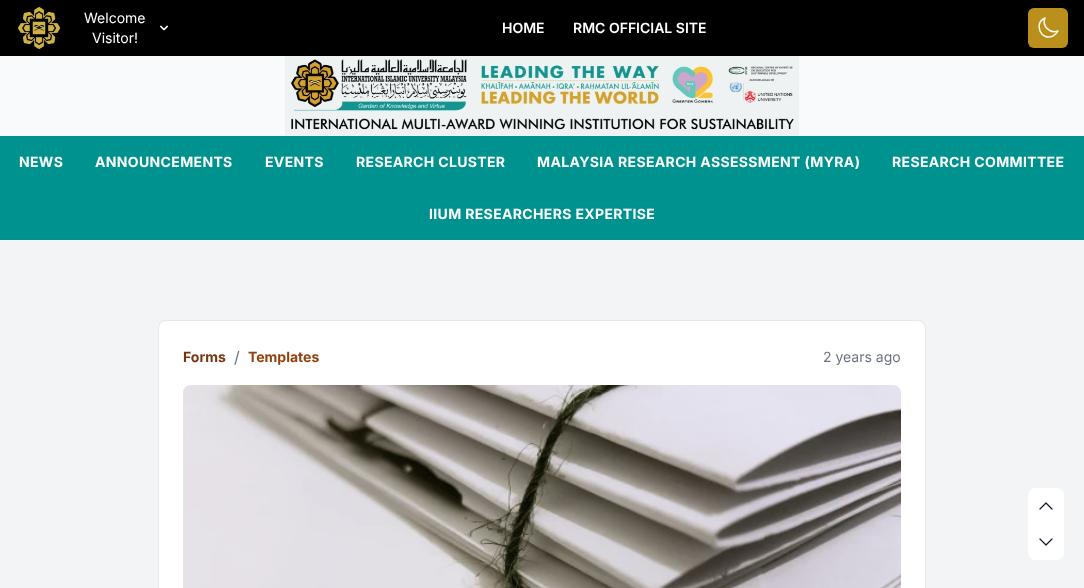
<svg xmlns="http://www.w3.org/2000/svg" xmlns:xlink="http://www.w3.org/1999/xlink" width="1084" height="588" viewBox="0 0 1084 588">
<style>
.cls-1{font:14px Inter;fill:#ffffff}
.cls-2{font:600 14px Inter;fill:#ffffff}
.cls-3{font:bold 14px Inter;letter-spacing:0.35px;fill:#ffffff}
.cls-4{font:bold 14px Inter;fill:#78350f}
.cls-5{font:16px Inter;fill:#6b7280}
.cls-6{font:bold 14px Inter;fill:#92400e}
.cls-7{font:14px Inter;fill:#6b7280}
</style>
<rect width="100%" height="100%" fill="#f3f4f6"/>
<rect fill="#00928f" x="0" y="136" width="1084" height="104"/>
<rect fill="#000000" x="0" y="0" width="1084" height="56"/>
<image xlink:href="image0.png" x="16" y="5" width="46" height="47"/>
<image xlink:href="image1.png" x="160" y="25" width="8" height="6"/>
<rect fill="#ba8f1c" x="1028" y="8" width="40" height="40" rx="6"/>
<path fill="none" stroke="#fffbeb" stroke-width="1.5" stroke-linecap="round" stroke-linejoin="round" d="M1058 31C1050 34 1041.5 26 1045 18C1033 23 1041 41.5 1053 36C1055 35 1057 33 1058 31Z"/>
<rect fill="#f9fafb" x="0" y="56" width="1084" height="80"/>
<image xlink:href="image2.png" x="285" y="56" width="514" height="80"/>
<rect fill="#ffffff" stroke="#e5e7eb" x="158.5" y="320.5" width="767" height="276" rx="7.5"/>
<image xlink:href="image3.png" x="183" y="385" width="718" height="203"/>
<rect fill="#ffffff" x="1028" y="488" width="36" height="72" rx="8"/>
<path fill="none" stroke="#111827" stroke-width="1.2" stroke-linecap="round" stroke-linejoin="round" d="M1040 509L1046 503L1052 509M1052 539L1046 545L1040 539"/>
<text class="cls-1" x="84" y="23">Welcome</text>
<text class="cls-1" x="92" y="43">Visitor!</text>
<text class="cls-2" x="502" y="33">HOME</text>
<text class="cls-2" x="573" y="33">RMC OFFICIAL SITE</text>
<text class="cls-3" x="19" y="167">NEWS</text>
<text class="cls-3" x="95" y="167">ANNOUNCEMENTS</text>
<text class="cls-3" x="265" y="167">EVENTS</text>
<text class="cls-3" x="356" y="167">RESEARCH CLUSTER</text>
<text class="cls-3" x="537" y="167">MALAYSIA RESEARCH ASSESSMENT (MYRA)</text>
<text class="cls-3" x="892" y="167">RESEARCH COMMITTEE</text>
<text class="cls-3" x="429" y="219">IIUM RESEARCHERS EXPERTISE</text>
<text class="cls-4" x="183" y="362">Forms</text>
<text class="cls-5" x="234" y="363">/</text>
<text class="cls-6" x="248" y="362">Templates</text>
<text class="cls-7" x="823" y="362">2 years ago</text>
</svg>
